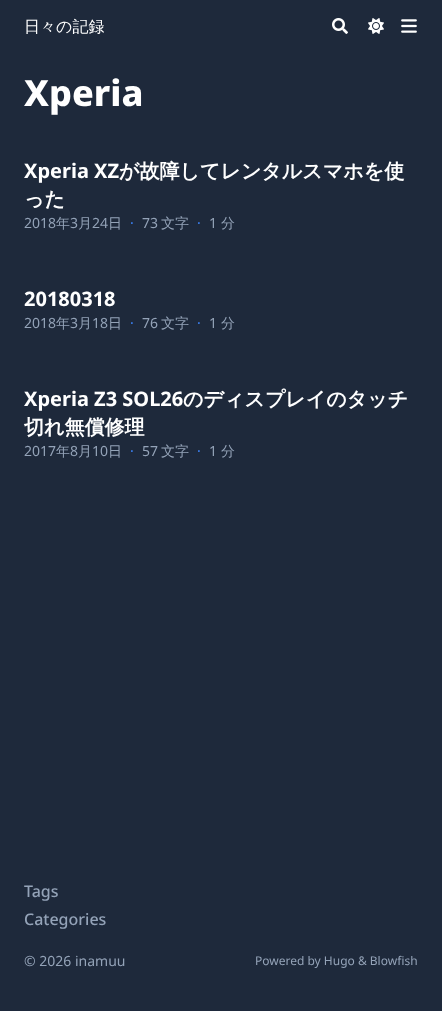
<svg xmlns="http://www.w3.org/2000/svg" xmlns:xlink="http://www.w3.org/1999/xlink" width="442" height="1011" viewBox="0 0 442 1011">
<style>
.cls-1{font:500 16px WenQuanYi Zen Hei;fill:#ffffff}
.cls-2{font:800 36px Noto Sans;fill:#ffffff}
.cls-3{font:bold 20px Noto Sans;fill:#ffffff}
.cls-4{font:bold 20px WenQuanYi Zen Hei;fill:#ffffff}
.cls-5{font:14px Noto Sans;fill:#94a3b8}
.cls-6{font:500 14px WenQuanYi Zen Hei;fill:#94a3b8}
.cls-7{font:14px Noto Sans;fill:#3b82f6}
.cls-8{font:500 16px Noto Sans;fill:#94a3b8}
.cls-9{font:12px Noto Sans;fill:#94a3b8}
</style>
<rect width="100%" height="100%" fill="#1e293b"/>
<image xlink:href="image0.png" x="332" y="18" width="16" height="16"/>
<image xlink:href="image1.png" x="368" y="18" width="16" height="16"/>
<image xlink:href="image2.png" x="401" y="19" width="16" height="14"/>
<text class="cls-1" x="24" y="32">日々の記録</text>
<text class="cls-2" x="24" y="106">Xperia</text>
<text class="cls-3" x="24" y="178">Xperia XZ</text>
<text class="cls-4" x="119" y="178">が故障してレンタルスマホを使</text>
<text class="cls-4" x="24" y="206">った</text>
<text class="cls-5" x="24" y="228">2018</text>
<text class="cls-6" x="56" y="228">年</text>
<text class="cls-5" x="70" y="228">3</text>
<text class="cls-6" x="78" y="228">月</text>
<text class="cls-5" x="92" y="228">24</text>
<text class="cls-6" x="108" y="228">日</text>
<text class="cls-7" x="130" y="228">·</text>
<text class="cls-5" x="142" y="228">73</text>
<text class="cls-6" x="161" y="228">文字</text>
<text class="cls-7" x="197" y="228">·</text>
<text class="cls-5" x="209" y="228">1</text>
<text class="cls-6" x="221" y="228">分</text>
<text class="cls-3" x="24" y="306">20180318</text>
<text class="cls-5" x="24" y="328">2018</text>
<text class="cls-6" x="56" y="328">年</text>
<text class="cls-5" x="70" y="328">3</text>
<text class="cls-6" x="78" y="328">月</text>
<text class="cls-5" x="92" y="328">18</text>
<text class="cls-6" x="108" y="328">日</text>
<text class="cls-7" x="130" y="328">·</text>
<text class="cls-5" x="142" y="328">76</text>
<text class="cls-6" x="161" y="328">文字</text>
<text class="cls-7" x="197" y="328">·</text>
<text class="cls-5" x="209" y="328">1</text>
<text class="cls-6" x="221" y="328">分</text>
<text class="cls-3" x="24" y="406">Xperia Z3 SOL26</text>
<text class="cls-4" x="183" y="406">のディスプレイのタッチ</text>
<text class="cls-4" x="24" y="434">切れ無償修理</text>
<text class="cls-5" x="24" y="456">2017</text>
<text class="cls-6" x="56" y="456">年</text>
<text class="cls-5" x="70" y="456">8</text>
<text class="cls-6" x="78" y="456">月</text>
<text class="cls-5" x="92" y="456">10</text>
<text class="cls-6" x="108" y="456">日</text>
<text class="cls-7" x="130" y="456">·</text>
<text class="cls-5" x="142" y="456">57</text>
<text class="cls-6" x="161" y="456">文字</text>
<text class="cls-7" x="197" y="456">·</text>
<text class="cls-5" x="209" y="456">1</text>
<text class="cls-6" x="221" y="456">分</text>
<text class="cls-8"><tspan x="24" y="897">Tags</tspan><tspan x="24" y="925">Categories</tspan></text>
<text class="cls-5" x="24" y="966">© 2026 inamuu</text>
<text class="cls-9" x="255" y="965">Powered by Hugo &amp; Blowfish</text>
</svg>
